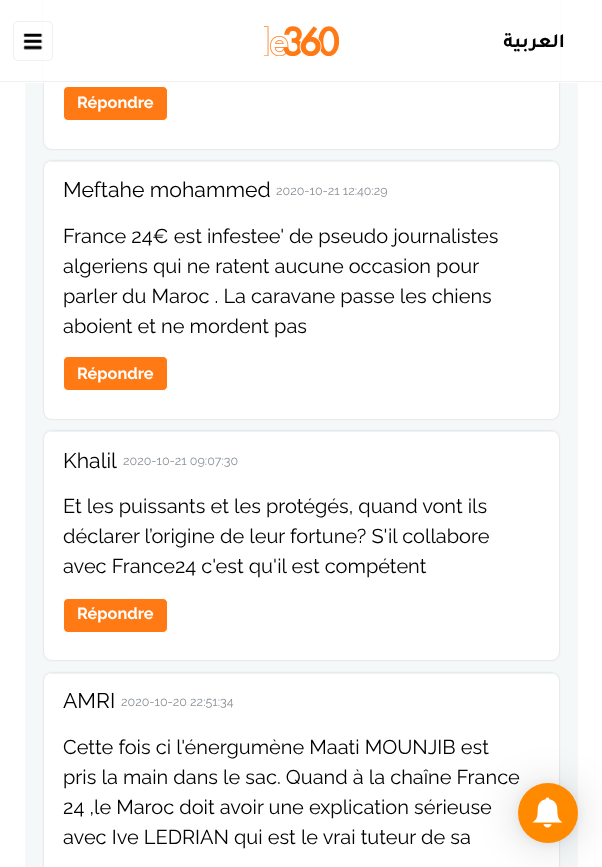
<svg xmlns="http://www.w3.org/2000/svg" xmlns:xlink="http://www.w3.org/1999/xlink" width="602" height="867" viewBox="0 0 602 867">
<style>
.cls-1{font:bold 20px Tajawal;direction:rtl;fill:#000000}
.cls-2{font:bold 16.25px Raleway;fill:#ffffff}
.cls-3{font:21.25px Raleway;fill:#000000}
.cls-4{font:12.5px Raleway;fill:#8b9299}
.cls-5{font:20px Raleway;fill:#000000}
</style>
<rect width="100%" height="100%" fill="#ffffff"/>
<rect fill="#f5f8f9" x="25" y="83" width="553" height="784"/>
<rect fill="#000000" fill-opacity="0.15" filter="blur(1px)" x="44" y="-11" width="515" height="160" rx="8"/>
<rect fill="#ffffff" x="44" y="-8" width="515" height="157" rx="8"/>
<rect fill="#ffffff" x="43" y="0" width="517" height="83"/>
<rect fill="#f0f0f0" x="0" y="81" width="602" height="1"/>
<rect fill="none" stroke="#f0f0f0" x="13.5" y="21.5" width="39" height="39" rx="4.5"/>
<image xlink:href="image0.png" x="23" y="33" width="20" height="17"/>
<image xlink:href="image1.png" x="264" y="26" width="76" height="30"/>
<rect fill="#ff7a14" stroke="#ffffff" x="63.5" y="86.5" width="104" height="34" rx="4.5"/>
<rect fill="#000000" fill-opacity="0.15" filter="blur(1px)" x="44" y="161" width="515" height="258" rx="8"/>
<rect fill="#ffffff" x="44" y="161" width="515" height="258" rx="8"/>
<rect fill="#eef1f5" x="48" y="161" width="507" height="1"/>
<rect fill="#ff7a14" stroke="#ffffff" x="63.5" y="356.5" width="104" height="34" rx="4.5"/>
<rect fill="#000000" fill-opacity="0.15" filter="blur(1px)" x="44" y="431" width="515" height="229" rx="8"/>
<rect fill="#ffffff" x="44" y="431" width="515" height="229" rx="8"/>
<rect fill="#eef1f5" x="48" y="431" width="507" height="1"/>
<rect fill="#ff7a14" stroke="#ffffff" x="63.5" y="598.5" width="104" height="34" rx="4.5"/>
<rect fill="#000000" fill-opacity="0.15" filter="blur(1px)" x="44" y="673" width="515" height="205" rx="8"/>
<rect fill="#ffffff" x="44" y="673" width="515" height="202" rx="8"/>
<rect fill="#eef1f5" x="48" y="673" width="507" height="1"/>
<rect fill="#000000" fill-opacity="0.16" filter="blur(20px)" x="518" y="785" width="60" height="60" rx="30"/>
<rect fill="#000000" fill-opacity="0.06" filter="blur(4px)" x="518" y="784" width="60" height="60" rx="30"/>
<text class="cls-1" x="565" y="47">العربية</text>
<text class="cls-2" x="77" y="108">Répondre</text>
<text class="cls-3" x="63" y="197">Meftahe mohammed</text>
<text class="cls-4" x="276" y="195">2020-10-21 12:40:29</text>
<text class="cls-5"><tspan x="63" y="243">France 24€ est infestee' de pseudo journalistes</tspan><tspan x="63" y="273">algeriens qui ne ratent aucune occasion pour</tspan><tspan x="63" y="303">parler du Maroc . La caravane passe les chiens</tspan><tspan x="63" y="333">aboient et ne mordent pas</tspan></text>
<text class="cls-2" x="77" y="379">Répondre</text>
<text class="cls-3" x="63" y="468">Khalil</text>
<text class="cls-4" x="123" y="465">2020-10-21 09:07:30</text>
<text class="cls-5"><tspan x="63" y="513">Et les puissants et les protégés, quand vont ils</tspan><tspan x="63" y="543">déclarer l’origine de leur fortune? S'il collabore</tspan><tspan x="63" y="573">avec France24 c'est qu'il est compétent</tspan></text>
<text class="cls-2" x="77" y="619">Répondre</text>
<text class="cls-3" x="63" y="708">AMRI</text>
<text class="cls-4" x="121" y="706">2020-10-20 22:51:34</text>
<text class="cls-5"><tspan x="63" y="754">Cette fois ci l'énergumène Maati MOUNJIB est</tspan><tspan x="63" y="784">pris la main dans le sac. Quand à la chaîne France</tspan><tspan x="63" y="814">24 ,le Maroc doit avoir une explication sérieuse</tspan><tspan x="63" y="844">avec Ive LEDRIAN qui est le vrai tuteur de sa</tspan></text>
<circle fill="#ff8a00" cx="548" cy="813" r="30"/>
<image xlink:href="image2.png" x="532" y="797" width="31" height="31"/>
</svg>
